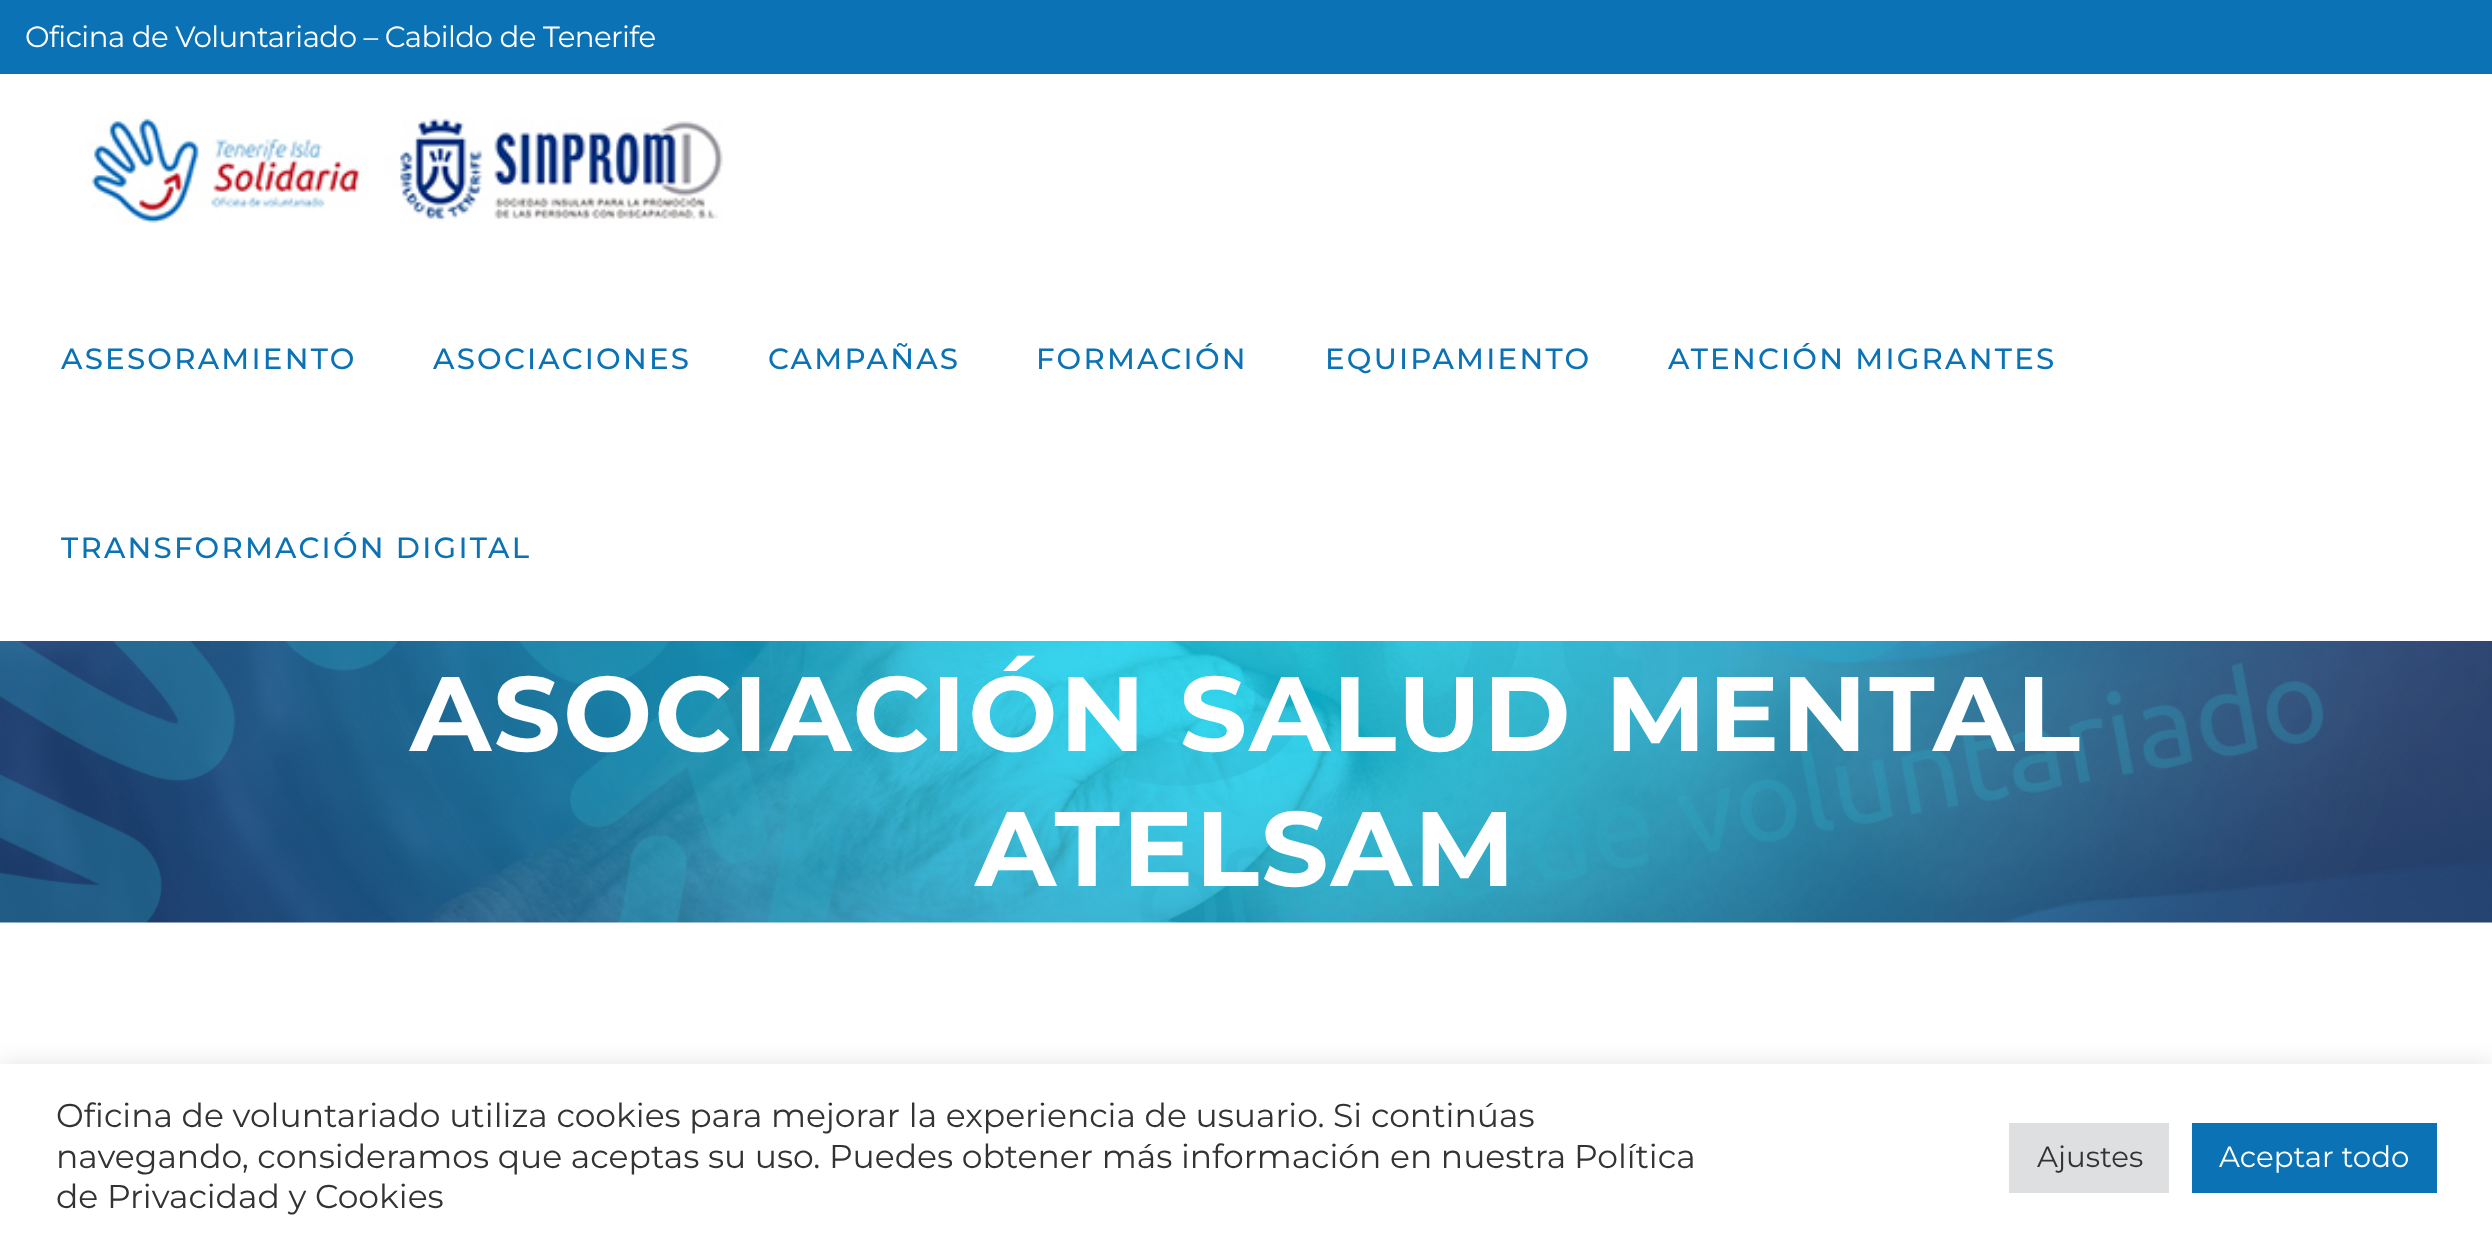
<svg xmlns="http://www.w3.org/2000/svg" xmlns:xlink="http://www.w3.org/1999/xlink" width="2492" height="1248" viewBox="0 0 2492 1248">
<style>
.cls-1{font:29.25px Montserrat;letter-spacing:-0.55px;fill:#ffffff}
.cls-2{font:500 29.25px Montserrat;letter-spacing:2.25px;fill:#0b72b5}
.cls-3{font:bold 105.75px Montserrat;letter-spacing:2.25px;fill:#ffffff}
.cls-4{font:33px Montserrat;fill:#333333}
.cls-5{font:29.25px Montserrat;fill:#333333}
.cls-6{font:29.25px Montserrat;fill:#ffffff}
</style>
<rect width="100%" height="100%" fill="#ffffff"/>
<rect fill="#0b72b5" x="0" y="0" width="2492" height="74"/>
<image xlink:href="image0.png" x="86" y="118" width="637" height="105"/>
<image xlink:href="image1.png" x="0" y="641" width="2492" height="282"/>
<rect fill="#acabab" fill-opacity="0.3" filter="blur(11px)" x="0" y="1062" width="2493" height="185"/>
<rect fill="#ffffff" x="0" y="1064" width="2492" height="184"/>
<rect fill="#dedfe0" x="2009" y="1123" width="160" height="70"/>
<rect fill="#0b72b5" x="2192" y="1123" width="245" height="70"/>
<text class="cls-1" x="25" y="47">Oficina de Voluntariado – Cabildo de Tenerife</text>
<text class="cls-2" x="61" y="369">ASESORAMIENTO</text>
<text class="cls-2" x="433" y="369">ASOCIACIONES</text>
<text class="cls-2" x="768" y="369">CAMPAÑAS</text>
<text class="cls-2" x="1036" y="369">FORMACIÓN</text>
<text class="cls-2" x="1325" y="369">EQUIPAMIENTO</text>
<text class="cls-2" x="1668" y="369">ATENCIÓN MIGRANTES</text>
<text class="cls-2" x="61" y="558">TRANSFORMACIÓN DIGITAL</text>
<text class="cls-3" x="410" y="751">ASOCIACIÓN SALUD MENTAL</text>
<text class="cls-3" x="975" y="886">ATELSAM</text>
<text class="cls-4"><tspan x="56" y="1127">Oficina de voluntariado utiliza cookies para mejorar la experiencia de usuario. Si continúas</tspan><tspan x="56" y="1168">navegando, consideramos que aceptas su uso. Puedes obtener más información en nuestra</tspan></text>
<text class="cls-4" x="1574" y="1168">Política</text>
<text class="cls-4" x="56" y="1208">de Privacidad y Cookies</text>
<text class="cls-5" x="2037" y="1167">Ajustes</text>
<text class="cls-6" x="2219" y="1167">Aceptar todo</text>
</svg>
